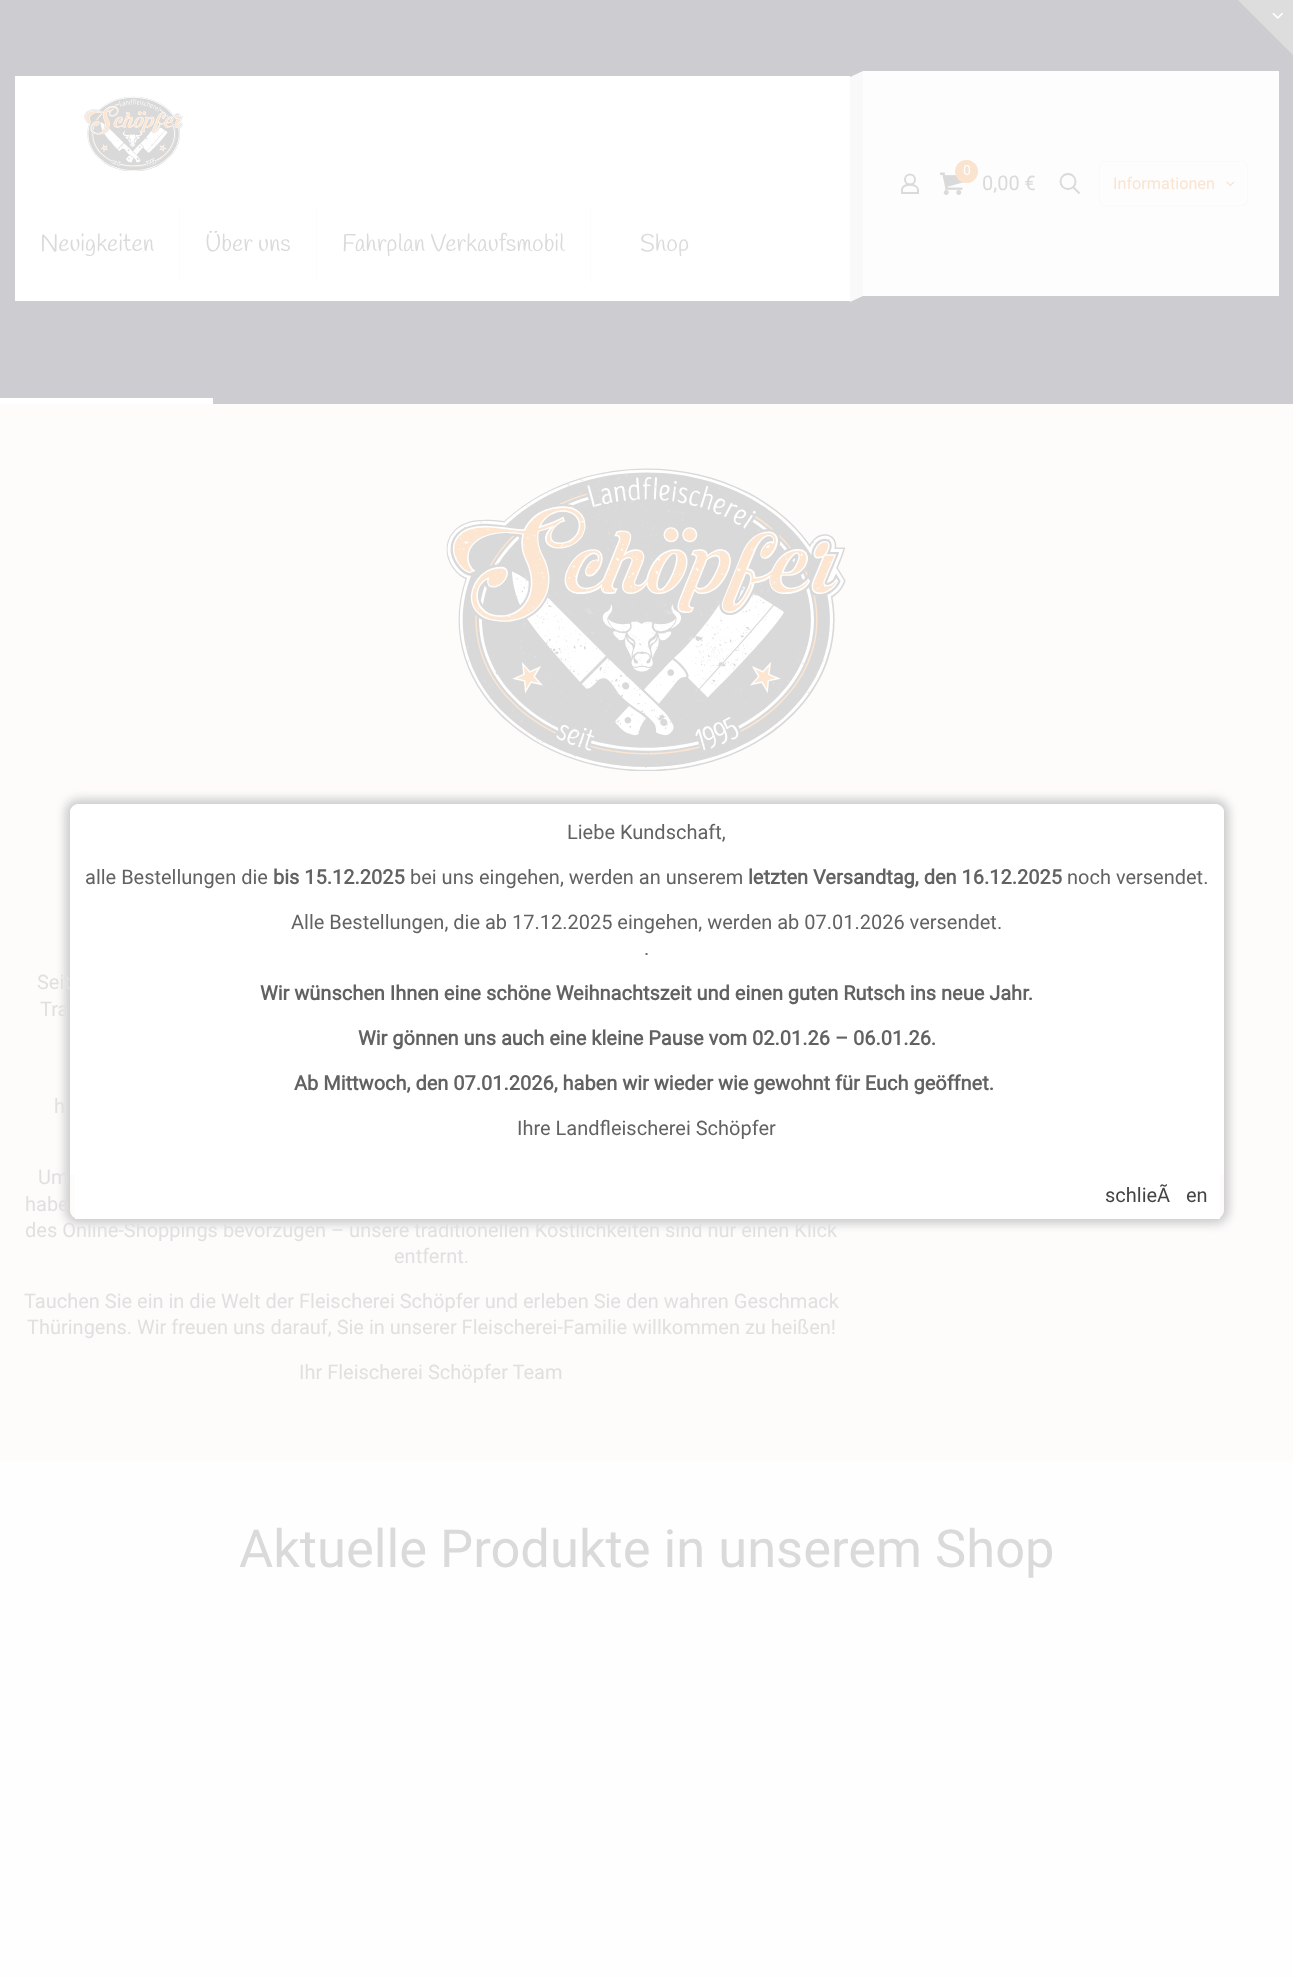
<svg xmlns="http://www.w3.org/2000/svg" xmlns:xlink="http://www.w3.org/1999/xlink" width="1293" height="1978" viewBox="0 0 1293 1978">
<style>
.cls-1{font:14px Roboto;fill:#ffffff}
.cls-2{font:20px Roboto;fill:#dadada}
.cls-3{font:16.25px Roboto;fill:#fae4d0}
.cls-4{font:23.75px Handlee;fill:#dadada}
.cls-5{font:20px Roboto;fill:#e0e0e0}
.cls-6{font:52.5px Roboto;fill:#dadada}
.cls-7{font:20px Roboto;fill:#626262}
.cls-8{font:bold 20px Roboto;fill:#626262}
.cls-9{font:20px Roboto;fill:#444444}
</style>
<defs>
<clipPath id="clip1"><path d="M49 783H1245V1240H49ZM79 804H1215C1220 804 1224 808 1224 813V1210C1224 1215 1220 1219 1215 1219H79C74 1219 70 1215 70 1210V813C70 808 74 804 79 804Z" clip-rule="evenodd"/></clipPath>
</defs>
<rect width="100%" height="100%" fill="#fefefe"/>
<rect fill="#ccccd1" x="0" y="0" width="1293" height="404"/>
<path fill="#dddddd" d="M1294 0V56L1238 0Z"/>
<image xlink:href="image0.png" x="1272" y="12" width="11" height="7"/>
<rect fill="#fdfdfd" x="863" y="71" width="416" height="225"/>
<path fill="#f9f9f9" d="M850 77L863 71V296L850 302Z"/>
<circle fill="none" stroke="#dadada" stroke-width="1.9" cx="910" cy="179.5" r="5"/>
<path fill="none" stroke="#dadada" stroke-width="1.9" d="M918 190V193H902V189C904 183 918 183.5 918 190Z"/>
<image xlink:href="image1.png" x="940" y="172" width="23" height="23"/>
<circle fill="#fae4d0" cx="966.5" cy="171.5" r="11.5"/>
<circle fill="none" stroke="#dadada" stroke-width="1.9" cx="1068" cy="181.5" r="7.5"/>
<path fill="none" stroke="#dadada" stroke-width="1.9" d="M1073 187L1079.5 193.5"/>
<rect fill="none" stroke="#fafafa" x="1099.5" y="161.5" width="148" height="44" rx="5.5"/>
<image xlink:href="image2.png" x="1226" y="181" width="9" height="6"/>
<rect fill="#ffffff" x="15" y="76" width="835" height="225"/>
<image xlink:href="image3.png" x="84" y="96" width="99" height="75"/>
<rect fill="#fcfcfc" x="179" y="208" width="1" height="75"/>
<rect fill="#fcfcfc" x="316" y="208" width="1" height="75"/>
<rect fill="#fcfcfc" x="590" y="208" width="1" height="75"/>
<rect fill="#ffffff" x="0" y="398" width="213" height="6"/>
<rect fill="#fdfcfb" x="0" y="404" width="1293" height="1057"/>
<image xlink:href="image4.png" x="446" y="468" width="400" height="303"/>
<g clip-path="url(#clip1)">
<rect fill="#cccccc" filter="blur(5px)" x="65" y="799" width="1164" height="425" rx="14"/>
</g>
<rect fill="#ffffff" x="75" y="1175" width="1145" height="44"/>
<text class="cls-1" x="963" y="175">0</text>
<text class="cls-2" x="982" y="190">0,00 €</text>
<text class="cls-3" x="1113" y="189">Informationen</text>
<text class="cls-4" x="40" y="251">Neuigkeiten</text>
<text class="cls-4" x="205" y="251">Über uns</text>
<text class="cls-4" x="342" y="251">Fahrplan Verkaufsmobil</text>
<text class="cls-4" x="640" y="251">Shop</text>
<text class="cls-5" x="37" y="989">Seit</text>
<text class="cls-5" x="40" y="1016">Tra</text>
<text class="cls-5" x="54" y="1113">h</text>
<text class="cls-5" x="38" y="1184">Um</text>
<text class="cls-5"><tspan x="25" y="1211">habe</tspan><tspan x="25" y="1237">des Online-Shoppings bevorzugen – unsere traditionellen Köstlichkeiten sind nur einen Klick</tspan></text>
<text class="cls-5" x="394" y="1263">entfernt.</text>
<text class="cls-5" x="24" y="1308">Tauchen Sie ein in die Welt der Fleischerei Schöpfer und erleben Sie den wahren Geschmack</text>
<text class="cls-5" x="27" y="1334">Thüringens. Wir freuen uns darauf, Sie in unserer Fleischerei-Familie willkommen zu heißen!</text>
<text class="cls-5" x="299" y="1379">Ihr Fleischerei Schöpfer Team</text>
<text class="cls-6" x="239" y="1567">Aktuelle Produkte in unserem Shop</text>
<path fill="#ffffff" d="M79 804H1215C1220 804 1224 808 1224 812V1175H70V812C70 808 74 804 79 804Z"/>
<text class="cls-7" x="567" y="839">Liebe Kundschaft,</text>
<text class="cls-7" x="85" y="884">alle Bestellungen die</text>
<text class="cls-8" x="273" y="884">bis 15.12.2025</text>
<text class="cls-7" x="410" y="884">bei uns eingehen, werden an unserem</text>
<text class="cls-8" x="748" y="884">letzten Versandtag, den 16.12.2025</text>
<text class="cls-7" x="1067" y="884">noch versendet.</text>
<text class="cls-7" x="291" y="929">Alle Bestellungen, die ab 17.12.2025 eingehen, werden ab 07.01.2026 versendet.</text>
<text class="cls-7" x="644" y="955">.</text>
<text class="cls-8" x="260" y="1000">Wir wünschen Ihnen eine schöne Weihnachtszeit und einen guten Rutsch ins neue Jahr.</text>
<text class="cls-8" x="358" y="1045">Wir gönnen uns auch eine kleine Pause vom 02.01.26 – 06.01.26.</text>
<text class="cls-8" x="294" y="1090">Ab Mittwoch, den 07.01.2026, haben wir wieder wie gewohnt für Euch geöffnet.</text>
<text class="cls-7" x="517" y="1135">Ihre Landfleischerei Schöpfer</text>
<text class="cls-9" x="1105" y="1202">schlieÃ</text>
<text class="cls-9" x="1186" y="1202">en</text>
</svg>
